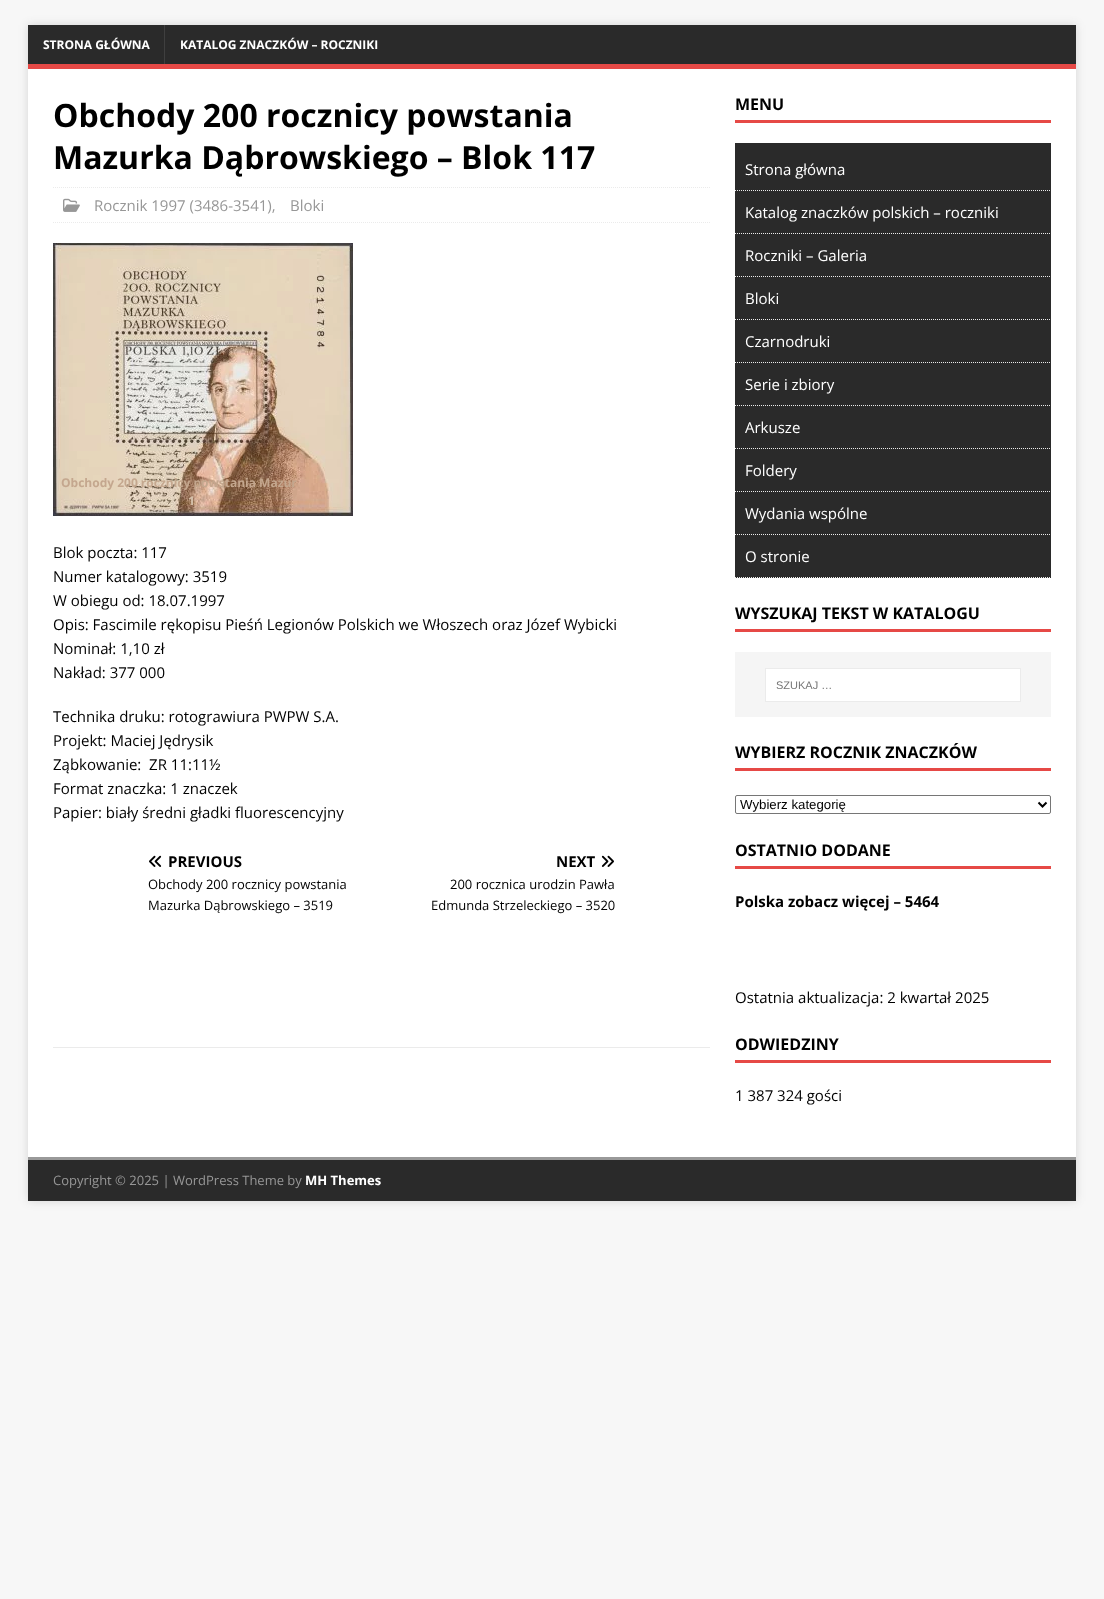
<svg xmlns="http://www.w3.org/2000/svg" xmlns:xlink="http://www.w3.org/1999/xlink" width="1104" height="1599" viewBox="0 0 1104 1599">
<style>
.cls-1{font:bold 12px Open Sans;fill:#ffffff}
.cls-2{font:bold 32px Open Sans;fill:#000000}
.cls-3{font:15px Open Sans;fill:#979797}
.cls-4{font:bold 12px Open Sans;fill:#c4a78e}
.cls-5{font:bold 12px Open Sans;fill:#d5c1ab}
.cls-6{font:15px Open Sans;fill:#000000}
.cls-7{font:bold 15px Open Sans;fill:#000000}
.cls-8{font:13px Open Sans;fill:#000000}
.cls-9{font:bold 16px Open Sans;fill:#000000}
.cls-10{font:15px Open Sans;fill:#ffffff}
.cls-11{font:11px Liberation Sans;fill:#757575}
.cls-12{font:13.25px Liberation Sans;fill:#000000}
.cls-13{font:13px Open Sans;fill:#979797}
.cls-14{font:bold 13px Open Sans;fill:#ffffff}
</style>
<rect width="100%" height="100%" fill="#f7f7f7"/>
<rect fill="#323232" fill-opacity="0.17" filter="blur(5px)" x="28" y="25" width="1048" height="1176"/>
<rect fill="#2a2a2a" x="28" y="25" width="1048" height="39"/>
<rect fill="#e64946" x="28" y="64" width="1048" height="5"/>
<rect fill="#3f3f3f" x="164" y="25" width="1" height="39"/>
<rect fill="#ffffff" x="28" y="69" width="1048" height="1088"/>
<path fill="none" stroke="#ebebeb" stroke-dasharray="1 1" d="M53 187.5H710"/>
<path fill="none" stroke="#ebebeb" stroke-dasharray="1 1" d="M53 222.5H710"/>
<image xlink:href="image0.png" x="63" y="198" width="17" height="14"/>
<image xlink:href="image1.png" x="53" y="243" width="300" height="273"/>
<rect fill="#ebebeb" x="53" y="1047" width="657" height="1"/>
<image xlink:href="image2.png" x="149" y="855" width="13" height="12"/>
<image xlink:href="image3.png" x="601" y="855" width="13" height="12"/>
<rect fill="#e64946" x="735" y="120" width="316" height="3"/>
<rect fill="#2a2a2a" x="735" y="143" width="316" height="435"/>
<path fill="none" stroke="#ebebeb" stroke-dasharray="1 1" d="M735 190.5H1051"/>
<path fill="none" stroke="#ebebeb" stroke-dasharray="1 1" d="M735 233.5H1051"/>
<path fill="none" stroke="#ebebeb" stroke-dasharray="1 1" d="M735 276.5H1051"/>
<path fill="none" stroke="#ebebeb" stroke-dasharray="1 1" d="M735 319.5H1051"/>
<path fill="none" stroke="#ebebeb" stroke-dasharray="1 1" d="M735 362.5H1051"/>
<path fill="none" stroke="#ebebeb" stroke-dasharray="1 1" d="M735 405.5H1051"/>
<path fill="none" stroke="#ebebeb" stroke-dasharray="1 1" d="M735 448.5H1051"/>
<path fill="none" stroke="#ebebeb" stroke-dasharray="1 1" d="M735 491.5H1051"/>
<path fill="none" stroke="#ebebeb" stroke-dasharray="1 1" d="M735 534.5H1051"/>
<path fill="none" stroke="#ebebeb" stroke-dasharray="1 1" d="M735 577.5H1051"/>
<rect fill="#e64946" x="735" y="629" width="316" height="3"/>
<rect fill="#f5f5f5" x="735" y="652" width="316" height="65"/>
<rect fill="#ffffff" stroke="#ebebeb" x="765.5" y="668.5" width="255" height="33"/>
<rect fill="#e64946" x="735" y="768" width="316" height="3"/>
<rect fill="none" stroke="#767676" x="735.5" y="795.5" width="315" height="18" rx="1.5"/>
<path fill="none" stroke="#000000" stroke-width="2" d="M1038.5 802.5L1042.5 806.5L1046.5 802.5"/>
<rect fill="#e64946" x="735" y="866" width="316" height="3"/>
<rect fill="#e64946" x="735" y="1060" width="316" height="3"/>
<rect fill="#2a2a2a" x="28" y="1160" width="1048" height="41"/>
<rect fill="#999999" x="28" y="1157" width="1048" height="3"/>
<text class="cls-1" x="43" y="49">STRONA GŁÓWNA</text>
<text class="cls-1" x="180" y="49">KATALOG ZNACZKÓW – ROCZNIKI</text>
<text class="cls-2"><tspan x="53" y="127">Obchody 200 rocznicy powstania</tspan><tspan x="53" y="169">Mazurka Dąbrowskiego – Blok 117</tspan></text>
<text class="cls-3" x="94" y="211">Rocznik 1997 (3486-3541),</text>
<text class="cls-3" x="290" y="211">Bloki</text>
<text class="cls-4" x="61" y="487">Obchody 200 rocznicy powstania Mazur</text>
<text class="cls-5" x="188" y="505">1</text>
<text class="cls-6"><tspan x="53" y="558">Blok poczta: 117</tspan><tspan x="53" y="582">Numer katalogowy: 3519</tspan><tspan x="53" y="606">W obiegu od: 18.07.1997</tspan><tspan x="53" y="630">Opis: Fascimile rękopisu Pieśń Legionów Polskich we Włoszech oraz Józef Wybicki</tspan><tspan x="53" y="654">Nominał: 1,10 zł</tspan><tspan x="53" y="678">Nakład: 377 000</tspan></text>
<text class="cls-6" xml:space="preserve"><tspan x="53" y="722">Technika druku: rotograwiura PWPW S.A.</tspan><tspan x="53" y="746">Projekt: Maciej Jędrysik</tspan><tspan x="53" y="770">Ząbkowanie:  ZR 11:11½</tspan><tspan x="53" y="794">Format znaczka: 1 znaczek</tspan><tspan x="53" y="818">Papier: biały średni gładki fluorescencyjny</tspan></text>
<text class="cls-7" x="168" y="867">PREVIOUS</text>
<text class="cls-8"><tspan x="148" y="889">Obchody 200 rocznicy powstania</tspan><tspan x="148" y="910">Mazurka Dąbrowskiego – 3519</tspan></text>
<text class="cls-7" x="556" y="867">NEXT</text>
<text class="cls-8" x="450" y="889">200 rocznica urodzin Pawła</text>
<text class="cls-8" x="431" y="910">Edmunda Strzeleckiego – 3520</text>
<text class="cls-9" x="735" y="110">MENU</text>
<text class="cls-10" x="745" y="175">Strona główna</text>
<text class="cls-10" x="745" y="218">Katalog znaczków polskich – roczniki</text>
<text class="cls-10" x="745" y="261">Roczniki – Galeria</text>
<text class="cls-10" x="745" y="304">Bloki</text>
<text class="cls-10" x="745" y="347">Czarnodruki</text>
<text class="cls-10" x="745" y="390">Serie i zbiory</text>
<text class="cls-10" x="745" y="433">Arkusze</text>
<text class="cls-10" x="745" y="476">Foldery</text>
<text class="cls-10" x="745" y="519">Wydania wspólne</text>
<text class="cls-10" x="745" y="562">O stronie</text>
<text class="cls-9" x="735" y="619">WYSZUKAJ TEKST W KATALOGU</text>
<text class="cls-11" x="776" y="689">SZUKAJ …</text>
<text class="cls-9" x="735" y="758">WYBIERZ ROCZNIK ZNACZKÓW</text>
<text class="cls-12" x="740" y="809">Wybierz kategorię</text>
<text class="cls-9" x="735" y="856">OSTATNIO DODANE</text>
<text class="cls-7" x="735" y="907">Polska zobacz więcej – 5464</text>
<text class="cls-6" x="735" y="1003">Ostatnia aktualizacja: 2 kwartał 2025</text>
<text class="cls-9" x="735" y="1050">ODWIEDZINY</text>
<text class="cls-6" x="735" y="1101">1 387 324 gości</text>
<text class="cls-13" x="53" y="1185">Copyright © 2025 | WordPress Theme by</text>
<text class="cls-14" x="305" y="1185">MH Themes</text>
</svg>
